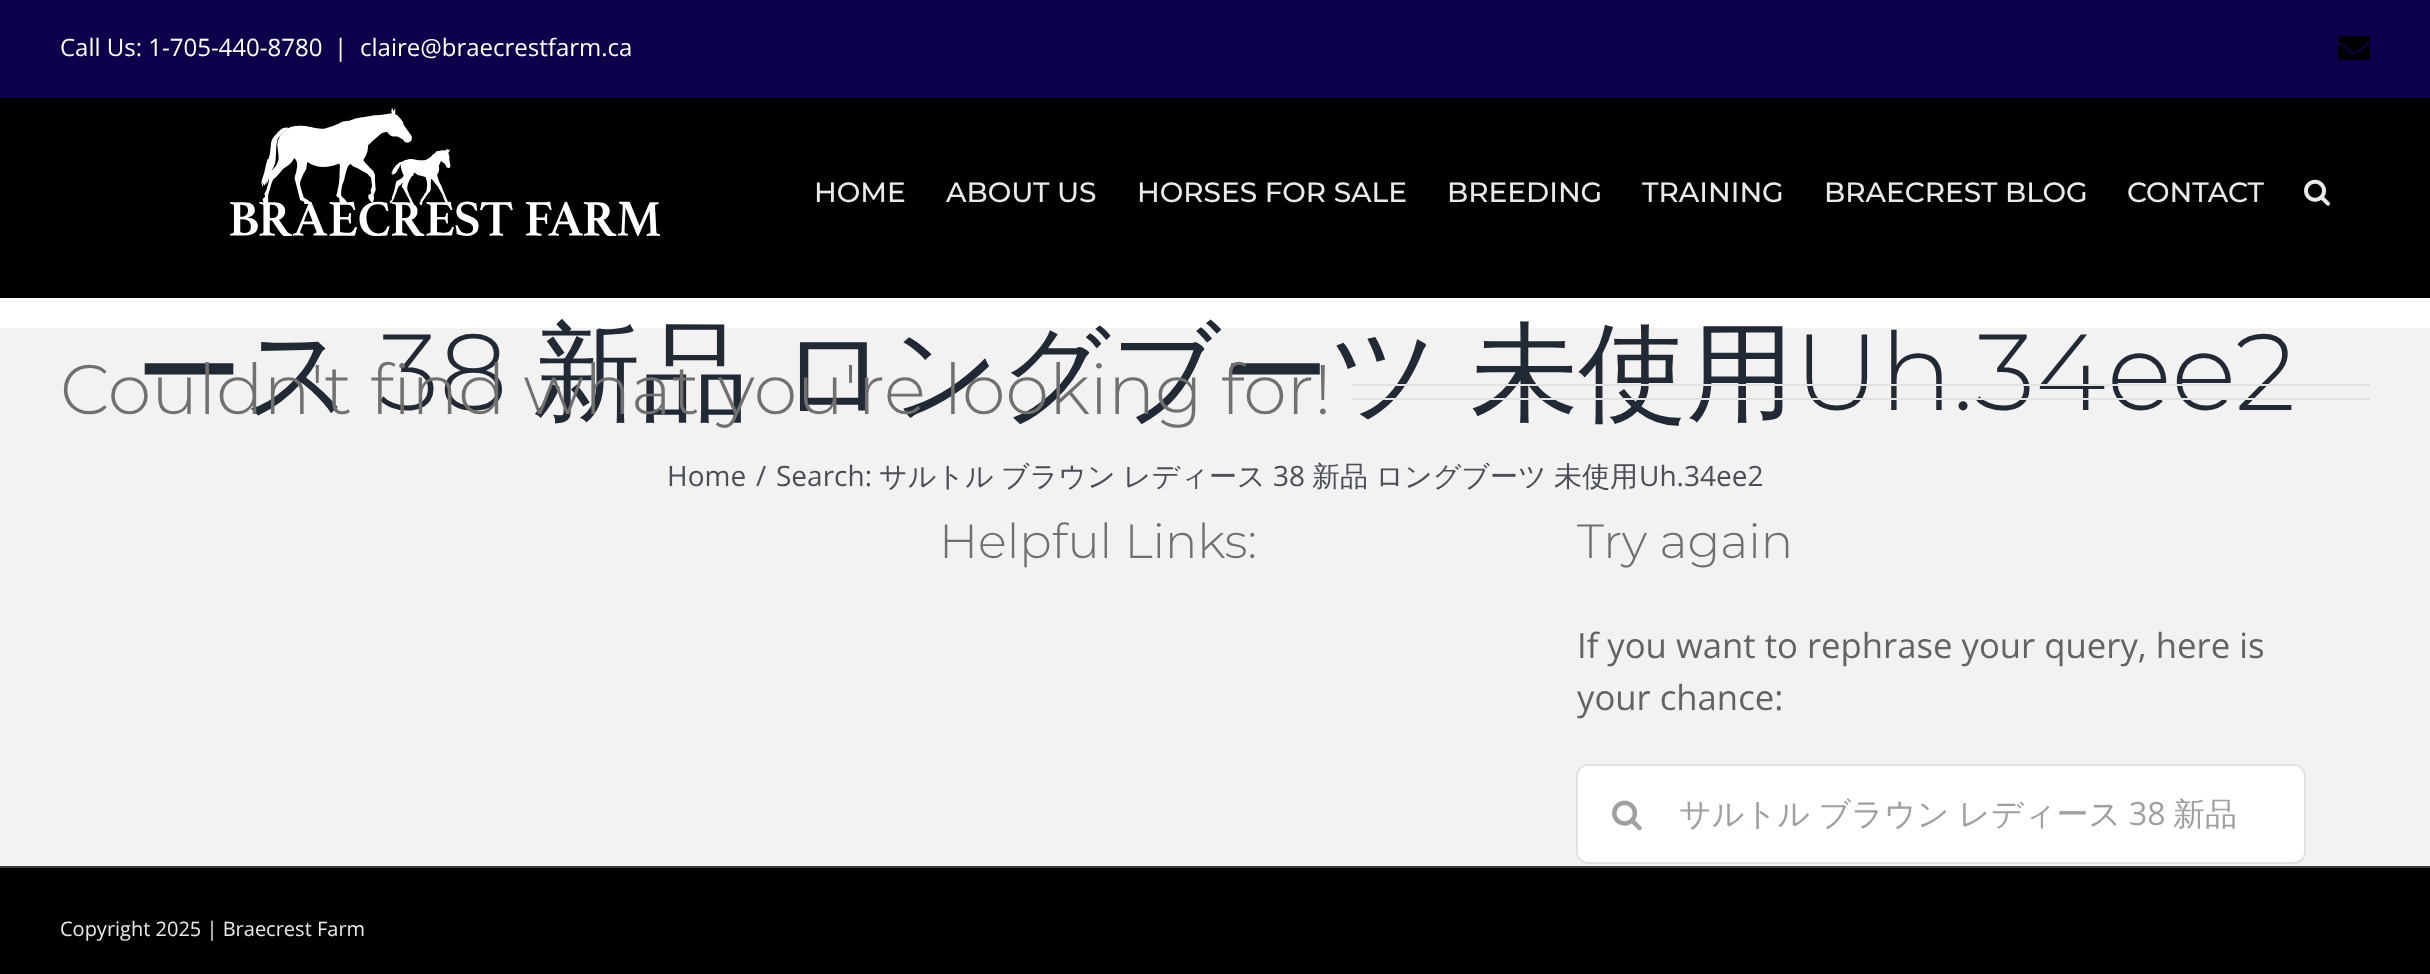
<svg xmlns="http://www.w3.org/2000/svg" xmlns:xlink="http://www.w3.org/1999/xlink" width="2430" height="974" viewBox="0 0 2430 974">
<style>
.cls-1{font:24px Open Sans;fill:#ffffff}
.cls-2{font:500 28px Montserrat;fill:#eaeaea}
.cls-3{font:500 108px WenQuanYi Zen Hei;fill:#212934}
.cls-4{font:300 108px Montserrat;fill:#212934}
.cls-5{font:28px Open Sans;fill:#4a4e57}
.cls-6{font:500 28px WenQuanYi Zen Hei;fill:#4a4e57}
.cls-7{font:300 70px Montserrat;fill:#707070}
.cls-8{font:300 48px Montserrat;fill:#707070}
.cls-9{font:34.7px Open Sans;fill:#636363}
.cls-10{font:500 32px WenQuanYi Zen Hei;fill:#9ea0a4}
.cls-11{font:32px Open Sans;fill:#9ea0a4}
.cls-12{font:20px Open Sans;fill:#eaeaea}
</style>
<rect width="100%" height="100%" fill="#f2f2f2"/>
<rect fill="#0b0049" x="0" y="0" width="2430" height="98"/>
<image xlink:href="image0.png" x="2338" y="36" width="32" height="24"/>
<rect fill="#000000" x="0" y="98" width="2430" height="200"/>
<image xlink:href="image1.png" x="230" y="108" width="430" height="128"/>
<image xlink:href="image2.png" x="2304" y="179" width="26" height="27"/>
<rect fill="#ffffff" x="0" y="298" width="2430" height="30"/>
<rect fill="#ffffff" stroke="#e2e2e2" stroke-width="2" x="1577" y="765" width="728" height="98" rx="11"/>
<image xlink:href="image3.png" x="1612" y="800" width="30" height="31"/>
<rect fill="#000000" x="0" y="868" width="2430" height="106"/>
<rect fill="#3a3a3a" x="0" y="866" width="2430" height="2"/>
<text class="cls-1" x="60" y="56">Call Us: 1-705-440-8780</text>
<text class="cls-1" x="334" y="56">|</text>
<text class="cls-1" x="360" y="56">claire@braecrestfarm.ca</text>
<text class="cls-2" x="814" y="202">HOME</text>
<text class="cls-2" x="946" y="202">ABOUT US</text>
<text class="cls-2" x="1137" y="202">HORSES FOR SALE</text>
<text class="cls-2" x="1447" y="202">BREEDING</text>
<text class="cls-2" x="1642" y="202">TRAINING</text>
<text class="cls-2" x="1824" y="202">BRAECREST BLOG</text>
<text class="cls-2" x="2127" y="202">CONTACT</text>
<text class="cls-3" x="135" y="410">ース</text>
<text class="cls-4" x="379" y="410">38</text>
<text class="cls-3" x="533" y="410" word-spacing="-2">新品 ロングブーツ 未使用</text>
<text class="cls-4" x="1794" y="410">Uh.34ee2</text>
<text class="cls-5" x="667" y="486">Home</text>
<text class="cls-5" x="756" y="486">/</text>
<text class="cls-5" x="776" y="486">Search:</text>
<text class="cls-6" x="879" y="486" word-spacing="-1">サルトル ブラウン レディース</text>
<text class="cls-5" x="1273" y="486">38</text>
<text class="cls-6" x="1312" y="486" word-spacing="-1">新品 ロングブーツ 未使用</text>
<text class="cls-5" x="1639" y="486">Uh.34ee2</text>
<text class="cls-7" x="60" y="414">Couldn't find what you're looking for!</text>
<rect fill="#e2e2e2" x="1352" y="384" width="1018" height="2"/>
<rect fill="#e2e2e2" x="1352" y="398" width="1018" height="2"/>
<text class="cls-8" x="939" y="558">Helpful Links:</text>
<text class="cls-8" x="1577" y="558">Try again</text>
<text class="cls-9"><tspan x="1577" y="658">If you want to rephrase your query, here is</tspan><tspan x="1577" y="710">your chance:</tspan></text>
<text class="cls-10" x="1679" y="825" word-spacing="-1">サルトル ブラウン レディース</text>
<text class="cls-11" x="2129" y="825">38</text>
<text class="cls-10" x="2173" y="825" word-spacing="-1">新品</text>
<text class="cls-12" x="60" y="936">Copyright 2025 | Braecrest Farm</text>
</svg>
